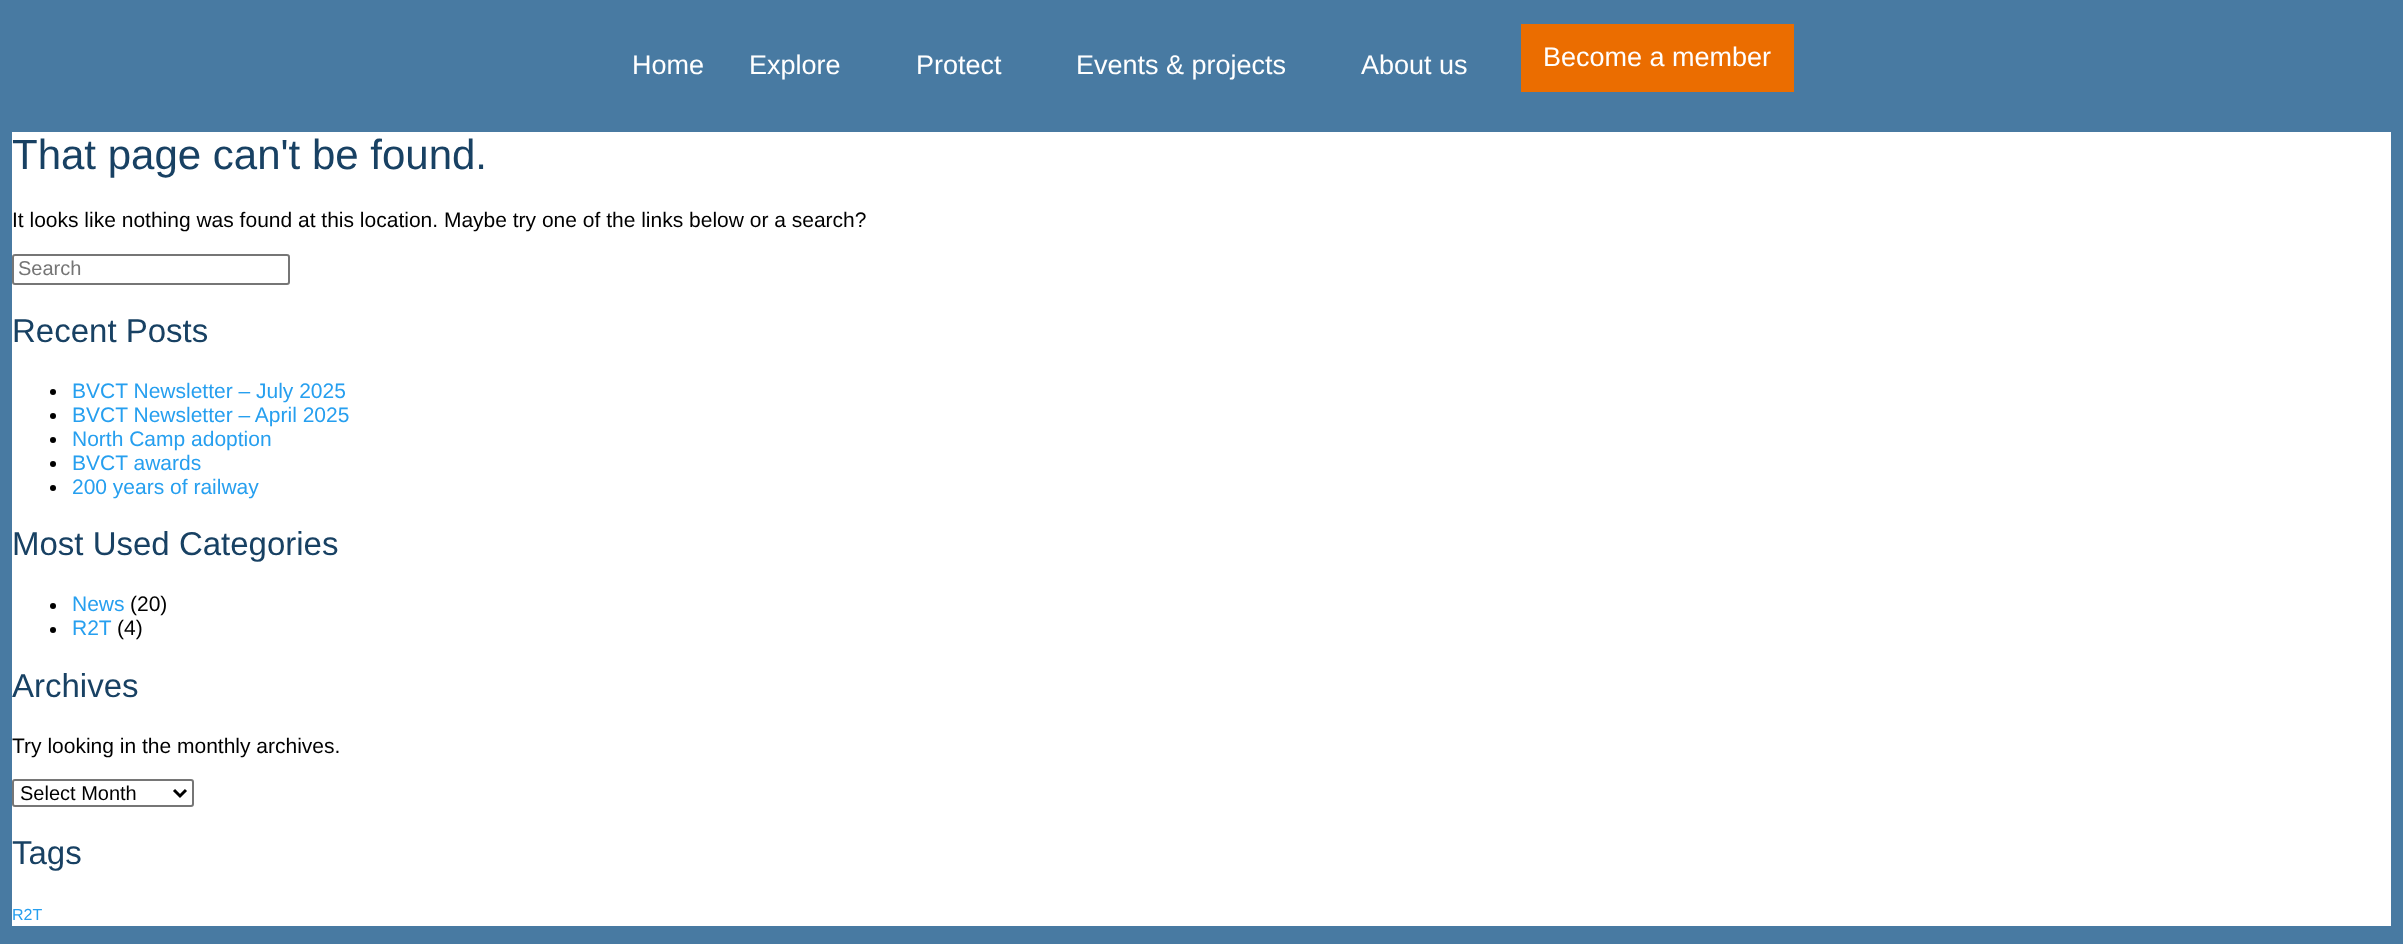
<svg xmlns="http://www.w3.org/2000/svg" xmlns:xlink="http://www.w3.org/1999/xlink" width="2403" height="944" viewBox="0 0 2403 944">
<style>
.cls-1{font:27px Liberation Sans;fill:#ffffff}
.cls-2{font:42px Liberation Sans;fill:#184163}
.cls-3{font:21px Liberation Sans;fill:#000000}
.cls-4{font:20px Liberation Sans;fill:#757575}
.cls-5{font:33px Liberation Sans;fill:#184163}
.cls-6{font:21px Liberation Sans;fill:#269fef}
.cls-7{font:20px Liberation Sans;fill:#000000}
.cls-8{font:16px Liberation Sans;fill:#269fef}
</style>
<rect width="100%" height="100%" fill="#487aa2"/>
<rect fill="#eb6d00" x="1521" y="24" width="273" height="68"/>
<rect fill="#ffffff" x="12" y="132" width="2379" height="794"/>
<rect fill="none" stroke="#767676" stroke-width="2" x="13" y="255" width="276" height="29" rx="2"/>
<circle fill="#000000" cx="53" cy="392" r="3"/>
<circle fill="#000000" cx="53" cy="416" r="3"/>
<circle fill="#000000" cx="53" cy="440" r="3"/>
<circle fill="#000000" cx="53" cy="464" r="3"/>
<circle fill="#000000" cx="53" cy="488" r="3"/>
<circle fill="#000000" cx="53" cy="606" r="3"/>
<circle fill="#000000" cx="53" cy="630" r="3"/>
<rect fill="none" stroke="#767676" stroke-width="2" x="13" y="780" width="180" height="26" rx="2"/>
<path fill="none" stroke="#000000" stroke-width="3" d="M174 790L180 796L186 790"/>
<text class="cls-1" x="632" y="74">Home</text>
<text class="cls-1" x="749" y="74">Explore</text>
<text class="cls-1" x="916" y="74">Protect</text>
<text class="cls-1" x="1076" y="74">Events &amp; projects</text>
<text class="cls-1" x="1361" y="74">About us</text>
<text class="cls-1" x="1543" y="66">Become a member</text>
<text class="cls-2" x="12" y="169">That page can't be found.</text>
<text class="cls-3" x="12" y="227">It looks like nothing was found at this location. Maybe try one of the links below or a search?</text>
<text class="cls-4" x="18" y="275">Search</text>
<text class="cls-5" x="12" y="342">Recent Posts</text>
<text class="cls-6"><tspan x="72" y="398">BVCT Newsletter – July 2025</tspan><tspan x="72" y="422">BVCT Newsletter – April 2025</tspan><tspan x="72" y="446">North Camp adoption</tspan><tspan x="72" y="470">BVCT awards</tspan><tspan x="72" y="494">200 years of railway</tspan></text>
<text class="cls-5" x="12" y="555">Most Used Categories</text>
<text class="cls-6" x="72" y="611">News</text>
<text class="cls-3" x="130" y="611">(20)</text>
<text class="cls-6" x="72" y="635">R2T</text>
<text class="cls-3" x="117" y="635">(4)</text>
<text class="cls-5" x="12" y="697">Archives</text>
<text class="cls-3" x="12" y="753">Try looking in the monthly archives.</text>
<text class="cls-7" x="20" y="800">Select Month</text>
<text class="cls-5" x="12" y="864">Tags</text>
<text class="cls-8" x="12" y="920">R2T</text>
</svg>
